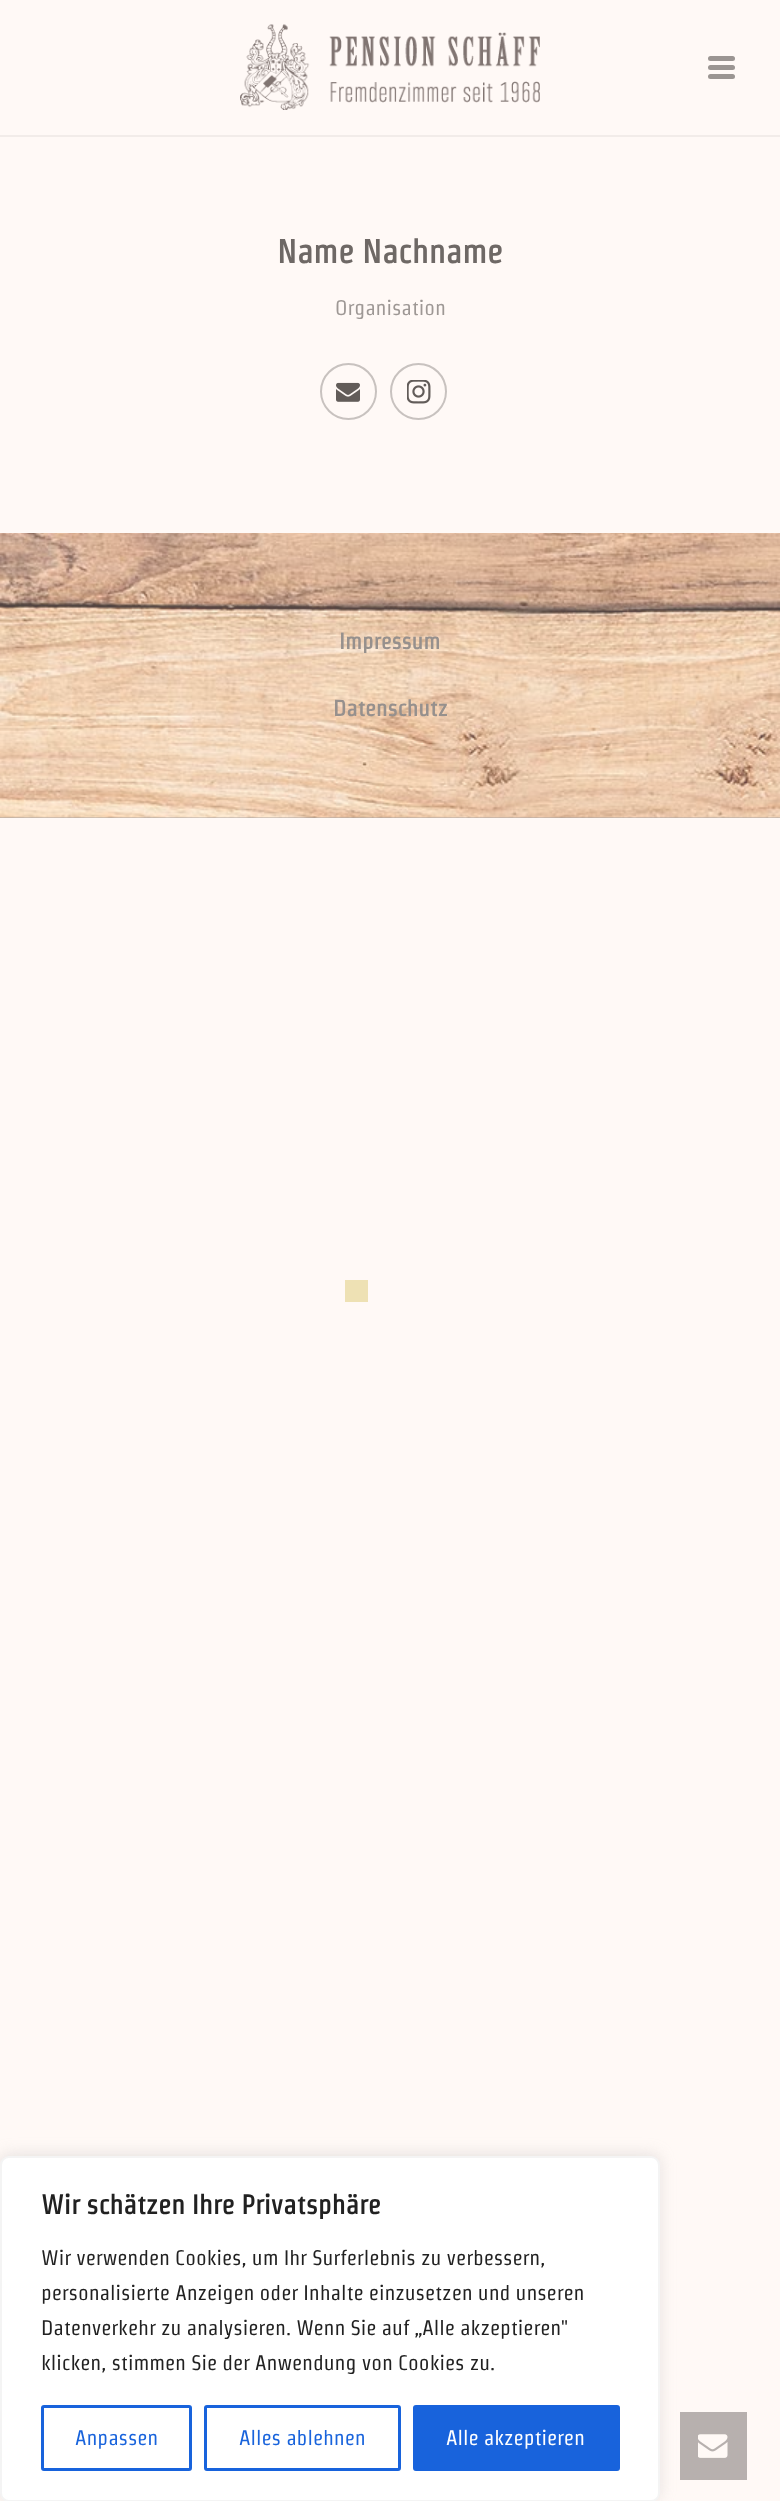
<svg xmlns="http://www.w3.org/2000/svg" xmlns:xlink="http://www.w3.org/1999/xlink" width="780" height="2501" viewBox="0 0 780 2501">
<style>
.cls-1{font:bold 33px Strait;fill:#6e6865}
.cls-2{font:21px Strait;fill:#9e9895}
.cls-3{font:bold 22.5px Strait;fill:#96908d}
.cls-4{font:bold 27px Strait;fill:#212121}
.cls-5{font:21px Strait;fill:#212121}
.cls-6{font:21px Strait;fill:#1863dc}
.cls-7{font:21px Strait;fill:#ffffff}
</style>
<rect width="100%" height="100%" fill="#fff9f6"/>
<rect fill="#f2ece9" x="0" y="135" width="780" height="2"/>
<image xlink:href="image0.png" x="240" y="24" width="300" height="86"/>
<rect fill="#9b9592" x="708" y="56" width="27" height="5" rx="2.5"/>
<rect fill="#9b9592" x="708" y="65" width="27" height="5" rx="2.5"/>
<rect fill="#9b9592" x="708" y="74" width="27" height="5" rx="2.5"/>
<circle fill="none" stroke="#c8c2bf" stroke-width="2" cx="348.5" cy="391.5" r="27.5"/>
<image xlink:href="image1.png" x="336" y="382" width="24" height="20"/>
<circle fill="none" stroke="#c8c2bf" stroke-width="2" cx="418.5" cy="391.5" r="27.5"/>
<image xlink:href="image2.png" x="407" y="380" width="24" height="24"/>
<rect fill="#ada7a4" x="0" y="817" width="780" height="1"/>
<image xlink:href="image3.png" x="0" y="533" width="780" height="285"/>
<rect fill="#eee1b4" x="345" y="1280" width="23" height="22"/>
<rect fill="#b7b0ae" x="680" y="2412" width="67" height="68"/>
<rect fill="#acabab" fill-opacity="0.3" filter="blur(7.5px)" x="0" y="2154" width="660" height="347" rx="9"/>
<rect fill="#ffffff" stroke="#f4f4f4" stroke-width="2" x="1" y="2157" width="658" height="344" rx="8"/>
<rect fill="none" stroke="#1863dc" stroke-width="3" x="42.5" y="2406.5" width="148" height="63" rx="1.5"/>
<rect fill="none" stroke="#1863dc" stroke-width="3" x="205.5" y="2406.5" width="194" height="63" rx="1.5"/>
<rect fill="#1863dc" stroke="#1863dc" stroke-width="3" x="414.5" y="2406.5" width="204" height="63" rx="1.5"/>
<image xlink:href="image4.png" x="698" y="2434" width="30" height="24"/>
<text class="cls-1" x="277" y="263">Name Nachname</text>
<text class="cls-2" x="335" y="315">Organisation</text>
<text class="cls-3" x="339" y="649">Impressum</text>
<text class="cls-3" x="333" y="716">Datenschutz</text>
<text class="cls-4" x="41" y="2214">Wir schätzen Ihre Privatsphäre</text>
<text class="cls-5"><tspan x="41" y="2265">Wir verwenden Cookies, um Ihr Surferlebnis zu verbessern,</tspan><tspan x="41" y="2300">personalisierte Anzeigen oder Inhalte einzusetzen und unseren</tspan><tspan x="41" y="2335">Datenverkehr zu analysieren. Wenn Sie auf „Alle akzeptieren"</tspan><tspan x="41" y="2370">klicken, stimmen Sie der Anwendung von Cookies zu.</tspan></text>
<text class="cls-6" x="75" y="2445">Anpassen</text>
<text class="cls-6" x="239" y="2445">Alles ablehnen</text>
<text class="cls-7" x="446" y="2445">Alle akzeptieren</text>
</svg>
